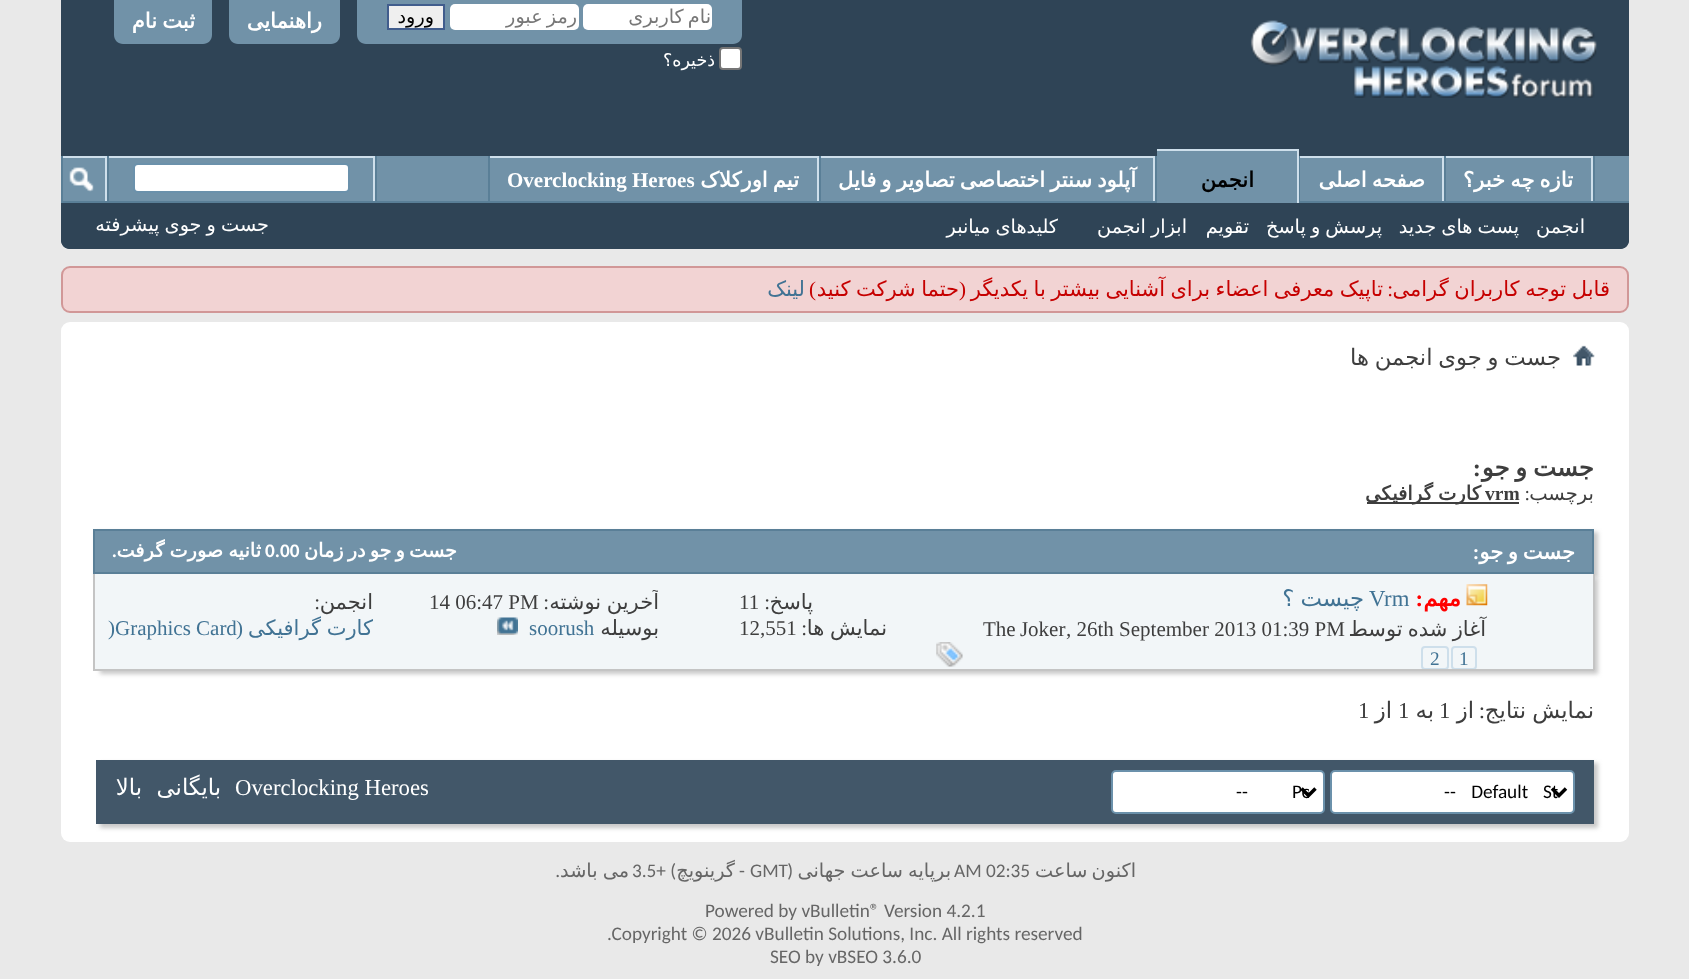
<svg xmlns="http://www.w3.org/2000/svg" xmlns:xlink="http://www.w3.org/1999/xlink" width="1689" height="979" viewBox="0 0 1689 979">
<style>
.cls-1{font:19.25px DejaVu Sans;direction:rtl;fill:#777777}
.cls-2{font:19.25px DejaVu Sans;direction:rtl;fill:#000000}
.cls-3{font:17.5px DejaVu Sans;direction:rtl;fill:#ffffff}
.cls-4{font:bold 21px DejaVu Sans;direction:rtl;fill:#ffffff}
.cls-5{font:bold 21px DejaVu Sans;direction:rtl;fill:#000000}
.cls-6{font:bold 21px Liberation Serif;fill:#ffffff}
.cls-7{font:19.25px DejaVu Sans;direction:rtl;fill:#ffffff}
.cls-8{font:21px DejaVu Sans;direction:rtl;fill:#c60000}
.cls-9{font:21px Liberation Serif;direction:rtl;fill:#c60000}
.cls-10{font:21px DejaVu Sans;direction:rtl;fill:#417394}
.cls-11{font:22.75px DejaVu Sans;direction:rtl;fill:#3e3e3e}
.cls-12{font:bold 24.5px DejaVu Sans;direction:rtl;fill:#3e3e3e}
.cls-13{font:bold 24.5px Liberation Serif;direction:rtl;fill:#3e3e3e}
.cls-14{font:19.5px DejaVu Sans;direction:rtl;fill:#3e3e3e}
.cls-15{font:19.5px Liberation Serif;direction:rtl;fill:#3e3e3e}
.cls-16{font:bold 19.5px Liberation Serif;fill:#3e3e3e}
.cls-17{font:bold 19.5px DejaVu Sans;direction:rtl;fill:#3e3e3e}
.cls-18{font:bold 21px Carlito;fill:#ffffff}
.cls-19{font:bold 19.25px DejaVu Sans;direction:rtl;fill:#ffffff}
.cls-20{font:bold 19.25px Carlito;fill:#ffffff}
.cls-21{font:bold 19.25px Carlito;direction:rtl;fill:#ffffff}
.cls-22{font:bold 22.75px DejaVu Sans;direction:rtl;fill:#ff0000}
.cls-23{font:bold 22.75px Liberation Serif;direction:rtl;fill:#ff0000}
.cls-24{font:22.75px Liberation Serif;fill:#417394}
.cls-25{font:22.75px DejaVu Sans;direction:rtl;fill:#417394}
.cls-26{font:21px DejaVu Sans;direction:rtl;fill:#3e3e3e}
.cls-27{font:21px Liberation Serif;fill:#3e3e3e}
.cls-28{font:19.25px Liberation Serif;fill:#417394}
.cls-29{font:21px Liberation Serif;direction:rtl;fill:#3e3e3e}
.cls-30{font:21px Liberation Serif;fill:#417394}
.cls-31{font:21px Liberation Serif;direction:rtl;fill:#417394}
.cls-32{font:22.75px Liberation Serif;direction:rtl;fill:#3e3e3e}
.cls-33{font:22.75px Liberation Serif;fill:#3e3e3e}
.cls-34{font:19.25px Carlito;fill:#000000}
.cls-35{font:22.75px Liberation Serif;fill:#ffffff}
.cls-36{font:22.75px DejaVu Sans;direction:rtl;fill:#ffffff}
.cls-37{font:19.25px DejaVu Sans;direction:rtl;fill:#666666}
.cls-38{font:19.25px Carlito;fill:#666666}
.cls-39{font:19.25px Carlito;direction:rtl;fill:#666666}
</style>
<defs>
<clipPath id="clip1"><rect x="919" y="574" width="674" height="95"/></clipPath>
<clipPath id="clip2"><rect x="585" y="5" width="126" height="23"/></clipPath>
<clipPath id="clip3"><rect x="429" y="590" width="229" height="26"/></clipPath>
<clipPath id="clip4"><rect x="107" y="590" width="266" height="52"/></clipPath>
<clipPath id="clip5"><rect x="1148" y="779" width="161" height="26"/></clipPath>
</defs>
<rect width="100%" height="100%" fill="#e9e9e9"/>
<path fill="#2f4456" d="M61-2H1629V240C1629 245 1625 249 1620 249H70C65 249 61 245 61 240Z"/>
<image xlink:href="image0.png" x="1250" y="20" width="347" height="78"/>
<path fill="#7192a8" d="M357-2H742V35C742 40 738 44 733 44H366C361 44 357 40 357 35Z"/>
<rect fill="#ffffff" x="583" y="4" width="129" height="26" rx="5"/>
<rect fill="#ffffff" x="450" y="4" width="129" height="26" rx="5"/>
<rect fill="#efefef" stroke="#415d8d" stroke-width="2" x="388" y="5" width="56" height="24"/>
<rect fill="#ffffff" stroke="#767676" stroke-width="2" x="720" y="48" width="21" height="21" rx="3"/>
<path fill="#7192a8" d="M229-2H340V35C340 40 336 44 331 44H238C233 44 229 40 229 35Z"/>
<path fill="#7192a8" d="M114-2H212V35C212 40 208 44 203 44H123C118 44 114 40 114 35Z"/>
<path fill="#2f4456" d="M61 156H1629V240C1629 245 1625 249 1620 249H70C65 249 61 245 61 240Z"/>
<rect fill="#7192a8" x="63" y="156" width="1566" height="45"/>
<rect fill="#5a7f97" x="1593" y="156" width="2" height="47"/>
<rect fill="#5a7f97" x="1444" y="156" width="2" height="47"/>
<rect fill="#cedfeb" x="1446" y="156" width="147" height="2"/>
<rect fill="#cedfeb" x="1591" y="156" width="2" height="47"/>
<rect fill="#5a7f97" x="1299" y="156" width="1" height="47"/>
<rect fill="#cedfeb" x="1300" y="156" width="144" height="2"/>
<rect fill="#cedfeb" x="1442" y="156" width="2" height="47"/>
<rect fill="#5a7f97" x="1155" y="156" width="2" height="45"/>
<rect fill="#5a7f97" x="819" y="156" width="2" height="47"/>
<rect fill="#cedfeb" x="821" y="156" width="334" height="2"/>
<rect fill="#cedfeb" x="1153" y="156" width="2" height="47"/>
<rect fill="#5a7f97" x="488" y="156" width="2" height="47"/>
<rect fill="#cedfeb" x="490" y="156" width="329" height="2"/>
<rect fill="#cedfeb" x="817" y="156" width="2" height="47"/>
<rect fill="#5a7f97" x="61" y="201" width="1568" height="2"/>
<rect fill="#7192a8" x="1157" y="151" width="140" height="52"/>
<rect fill="#cedfeb" x="1157" y="149" width="142" height="2"/>
<rect fill="#cedfeb" x="1297" y="149" width="2" height="54"/>
<rect fill="#5a7f97" x="375" y="156" width="2" height="45"/>
<rect fill="#cedfeb" x="109" y="156" width="266" height="2"/>
<rect fill="#cedfeb" x="373" y="156" width="2" height="45"/>
<rect fill="#ffffff" stroke="#6b91ab" stroke-width="2" x="134" y="164" width="215" height="28" rx="4"/>
<rect fill="#5a7f97" x="107" y="156" width="2" height="45"/>
<rect fill="#5a7f97" x="61" y="156" width="2" height="45"/>
<rect fill="#cedfeb" x="63" y="156" width="44" height="2"/>
<rect fill="#cedfeb" x="105" y="156" width="2" height="45"/>
<image xlink:href="image1.png" x="69" y="167" width="25" height="25"/>
<rect fill="#f2d3d3" stroke="#d19797" stroke-width="2" x="62" y="267" width="1566" height="45" rx="8"/>
<rect fill="#ffffff" x="61" y="322" width="1568" height="520" rx="9"/>
<image xlink:href="image2.png" x="1573" y="345" width="22" height="21"/>
<rect fill="#3e3e3e" x="1367" y="502" width="152" height="2"/>
<rect fill="#c8c8c8" filter="blur(2px)" x="96" y="532" width="1502" height="46"/>
<rect fill="#7192a8" stroke="#5a7f97" stroke-width="2" x="94" y="530" width="1499" height="43"/>
<rect fill="#c8c8c8" filter="blur(2px)" x="100" y="578" width="1498" height="96"/>
<rect fill="#f2f6f8" x="95" y="574" width="1498" height="95"/>
<rect fill="#c4c4c4" x="1593" y="574" width="2" height="96"/>
<rect fill="#c4c4c4" x="93" y="669" width="1501" height="2"/>
<rect fill="#c4c4c4" x="93" y="574" width="2" height="96"/>
<image xlink:href="image3.png" x="1466" y="584" width="22" height="22"/>
<g clip-path="url(#clip1)">
<rect fill="none" stroke="#cedfeb" stroke-width="2" x="1452" y="647" width="24" height="22" rx="3"/>
<rect fill="none" stroke="#cedfeb" stroke-width="2" x="1422" y="647" width="26" height="22" rx="3"/>
</g>
<image xlink:href="image4.png" x="936" y="642" width="27" height="25"/>
<image xlink:href="image5.png" x="497" y="617" width="21" height="18"/>
<rect fill="#c8c8c8" filter="blur(2px)" x="100" y="763" width="1498" height="65"/>
<rect fill="#425769" x="96" y="760" width="1498" height="64"/>
<rect fill="#ffffff" stroke="#6b91ab" stroke-width="2" x="1331" y="771" width="243" height="42" rx="4"/>
<path fill="none" stroke="#000000" stroke-width="3.5" d="M1552 788.5L1559 795.5L1566 788.5"/>
<rect fill="#ffffff" stroke="#6b91ab" stroke-width="2" x="1112" y="771" width="212" height="42" rx="4"/>
<path fill="none" stroke="#000000" stroke-width="3.5" d="M1301.5 788.5L1308.5 795.5L1315.5 788.5"/>
<g clip-path="url(#clip2)">
<text class="cls-1" x="711" y="23" word-spacing="-2">نام کاربری</text>
</g>
<text class="cls-1" x="577" y="23" word-spacing="-2">رمز عبور</text>
<text class="cls-2" x="434" y="23">ورود</text>
<text class="cls-3" x="715" y="66">ذخیره؟</text>
<text class="cls-4" x="322" y="28">راهنمایی</text>
<text class="cls-4" x="195" y="28" word-spacing="-1.5">ثبت نام</text>
<text class="cls-4" x="1573" y="187" word-spacing="-1.5">تازه چه خبر؟</text>
<text class="cls-4" x="1425" y="187" word-spacing="-1.5">صفحه اصلی</text>
<text class="cls-5" x="1254" y="187">انجمن</text>
<text class="cls-4" x="1136" y="187" word-spacing="-1.5">آپلود سنتر اختصاصی تصاویر و فایل</text>
<text class="cls-4" x="799" y="187" word-spacing="-1.5">تیم اورکلاک</text>
<text class="cls-6" x="507" y="187">Overclocking Heroes</text>
<text class="cls-7" x="1585" y="233">انجمن</text>
<text class="cls-7" x="1519" y="233" word-spacing="-1">پست های جدید</text>
<text class="cls-7" x="1382" y="233" word-spacing="-1">پرسش و پاسخ</text>
<text class="cls-7" x="1249" y="233">تقویم</text>
<text class="cls-7" x="1187" y="233" word-spacing="-1">ابزار انجمن</text>
<text class="cls-7" x="1058" y="233" word-spacing="-1">کلیدهای میانبر</text>
<text class="cls-7" x="269" y="231" word-spacing="-1">جست و جوی پیشرفته</text>
<text class="cls-8" x="1610" y="296" word-spacing="-1">قابل توجه کاربران گرامی</text>
<text class="cls-8" x="959" y="296" word-spacing="-1.25">حتما شرکت کنید</text>
<text class="cls-9" x="966" y="296">(</text>
<text class="cls-9" x="816" y="296">)</text>
<text class="cls-10" x="805" y="296">لینک</text>
<text class="cls-9" x="1393" y="296">:</text>
<text class="cls-8" x="1383" y="296" word-spacing="-1.25">تاپیک معرفی اعضاء برای آشنایی بیشتر با یکدیگر</text>
<text class="cls-11" x="1561" y="365" word-spacing="-1.5">جست و جوی انجمن ها</text>
<text class="cls-12" x="1594" y="476" word-spacing="-2">جست و جو</text>
<text class="cls-13" x="1481" y="476">:</text>
<text class="cls-14" x="1594" y="500">برچسب</text>
<text class="cls-15" x="1530" y="500">:</text>
<text class="cls-16" x="1485" y="500">vrm</text>
<text class="cls-17" x="1481" y="500" word-spacing="-1">کارت گرافیکی</text>
<text class="cls-4" x="1575" y="559" word-spacing="-2">جست و جو</text>
<text class="cls-18" x="1473" y="559">:</text>
<text class="cls-19" x="457" y="557" word-spacing="-2">جست و جو در زمان</text>
<text class="cls-20" x="265" y="557">0.00</text>
<text class="cls-19" x="261" y="557" word-spacing="-1">ثانیه صورت گرفت</text>
<text class="cls-21" x="117" y="557">.</text>
<text class="cls-22" x="1461" y="606">مهم</text>
<text class="cls-23" x="1423" y="606">:</text>
<text class="cls-24" x="1369" y="606">Vrm</text>
<text class="cls-25" x="1364" y="606" word-spacing="-1">چیست ؟</text>
<text class="cls-26" x="1486" y="636" word-spacing="-1.5">آغاز شده توسط</text>
<text class="cls-27" x="1066" y="636">, 26th September 2013 01:39 PM</text>
<text class="cls-27" x="983" y="636" word-spacing="-1">The Joker</text>
<text class="cls-28" x="1459" y="665">1</text>
<text class="cls-28" x="1430" y="665">2</text>
<text class="cls-26" x="813" y="609">پاسخ</text>
<text class="cls-29" x="770" y="609">:</text>
<text class="cls-27" x="739" y="609">11</text>
<text class="cls-26" x="887" y="635" word-spacing="-1">نمایش ها</text>
<text class="cls-29" x="807" y="635">:</text>
<text class="cls-27" x="739" y="635">12,551</text>
<g clip-path="url(#clip3)">
<text class="cls-26" x="659" y="609" word-spacing="-1">آخرين نوشته</text>
</g>
<text class="cls-29" x="549" y="609">:</text>
<text class="cls-27" x="429" y="609">14 06:47 PM</text>
<text class="cls-26" x="659" y="635">بوسیله</text>
<text class="cls-30" x="529" y="635">soorush</text>
<text class="cls-26" x="373" y="609">انجمن</text>
<text class="cls-29" x="320" y="609">:</text>
<g clip-path="url(#clip4)">
<text class="cls-10" x="373" y="635" word-spacing="-1">کارت گرافیکی</text>
</g>
<text class="cls-31" x="243" y="635">(</text>
<text class="cls-30" x="108" y="635">)Graphics Card</text>
<text class="cls-11" x="1594" y="718" word-spacing="-1">نمایش نتایج</text>
<text class="cls-32" x="1485" y="718">:</text>
<text class="cls-11" x="1474" y="718">از</text>
<text class="cls-33" x="1439" y="718">1</text>
<text class="cls-11" x="1434" y="718">به</text>
<text class="cls-33" x="1398" y="718">1</text>
<text class="cls-11" x="1392" y="718">از</text>
<text class="cls-33" x="1358" y="718">1</text>
<text class="cls-34" x="1543" y="798">St</text>
<text class="cls-34" x="1444" y="798" word-spacing="11">-- Default</text>
<g clip-path="url(#clip5)">
<text class="cls-34" x="1292" y="798">Pe</text>
</g>
<text class="cls-34" x="1236" y="798">--</text>
<text class="cls-35" x="235" y="795">Overclocking Heroes</text>
<text class="cls-36" x="221" y="795">بایگانی</text>
<text class="cls-36" x="142" y="795">بالا</text>
<text class="cls-37" x="1136" y="877" word-spacing="-2">اکنون ساعت</text>
<text class="cls-38" x="954" y="877">AM 02:35</text>
<text class="cls-37" x="951" y="877" word-spacing="-1">برپایه ساعت جهانی</text>
<text class="cls-39" x="793" y="877">(</text>
<text class="cls-38" x="750" y="877">GMT</text>
<text class="cls-39" x="745" y="877">-</text>
<text class="cls-37" x="735" y="877">گرینویچ</text>
<text class="cls-39" x="676" y="877">) +</text>
<text class="cls-38" x="632" y="877">3.5</text>
<text class="cls-37" x="629" y="877" word-spacing="-1">می باشد</text>
<text class="cls-39" x="560" y="877">.</text>
<text class="cls-38" x="705" y="917">Powered by vBulletin® Version 4.2.1</text>
<text class="cls-38" x="607" y="940">.Copyright © 2026 vBulletin Solutions, Inc. All rights reserved</text>
<text class="cls-38" x="770" y="963">SEO by vBSEO 3.6.0</text>
</svg>
